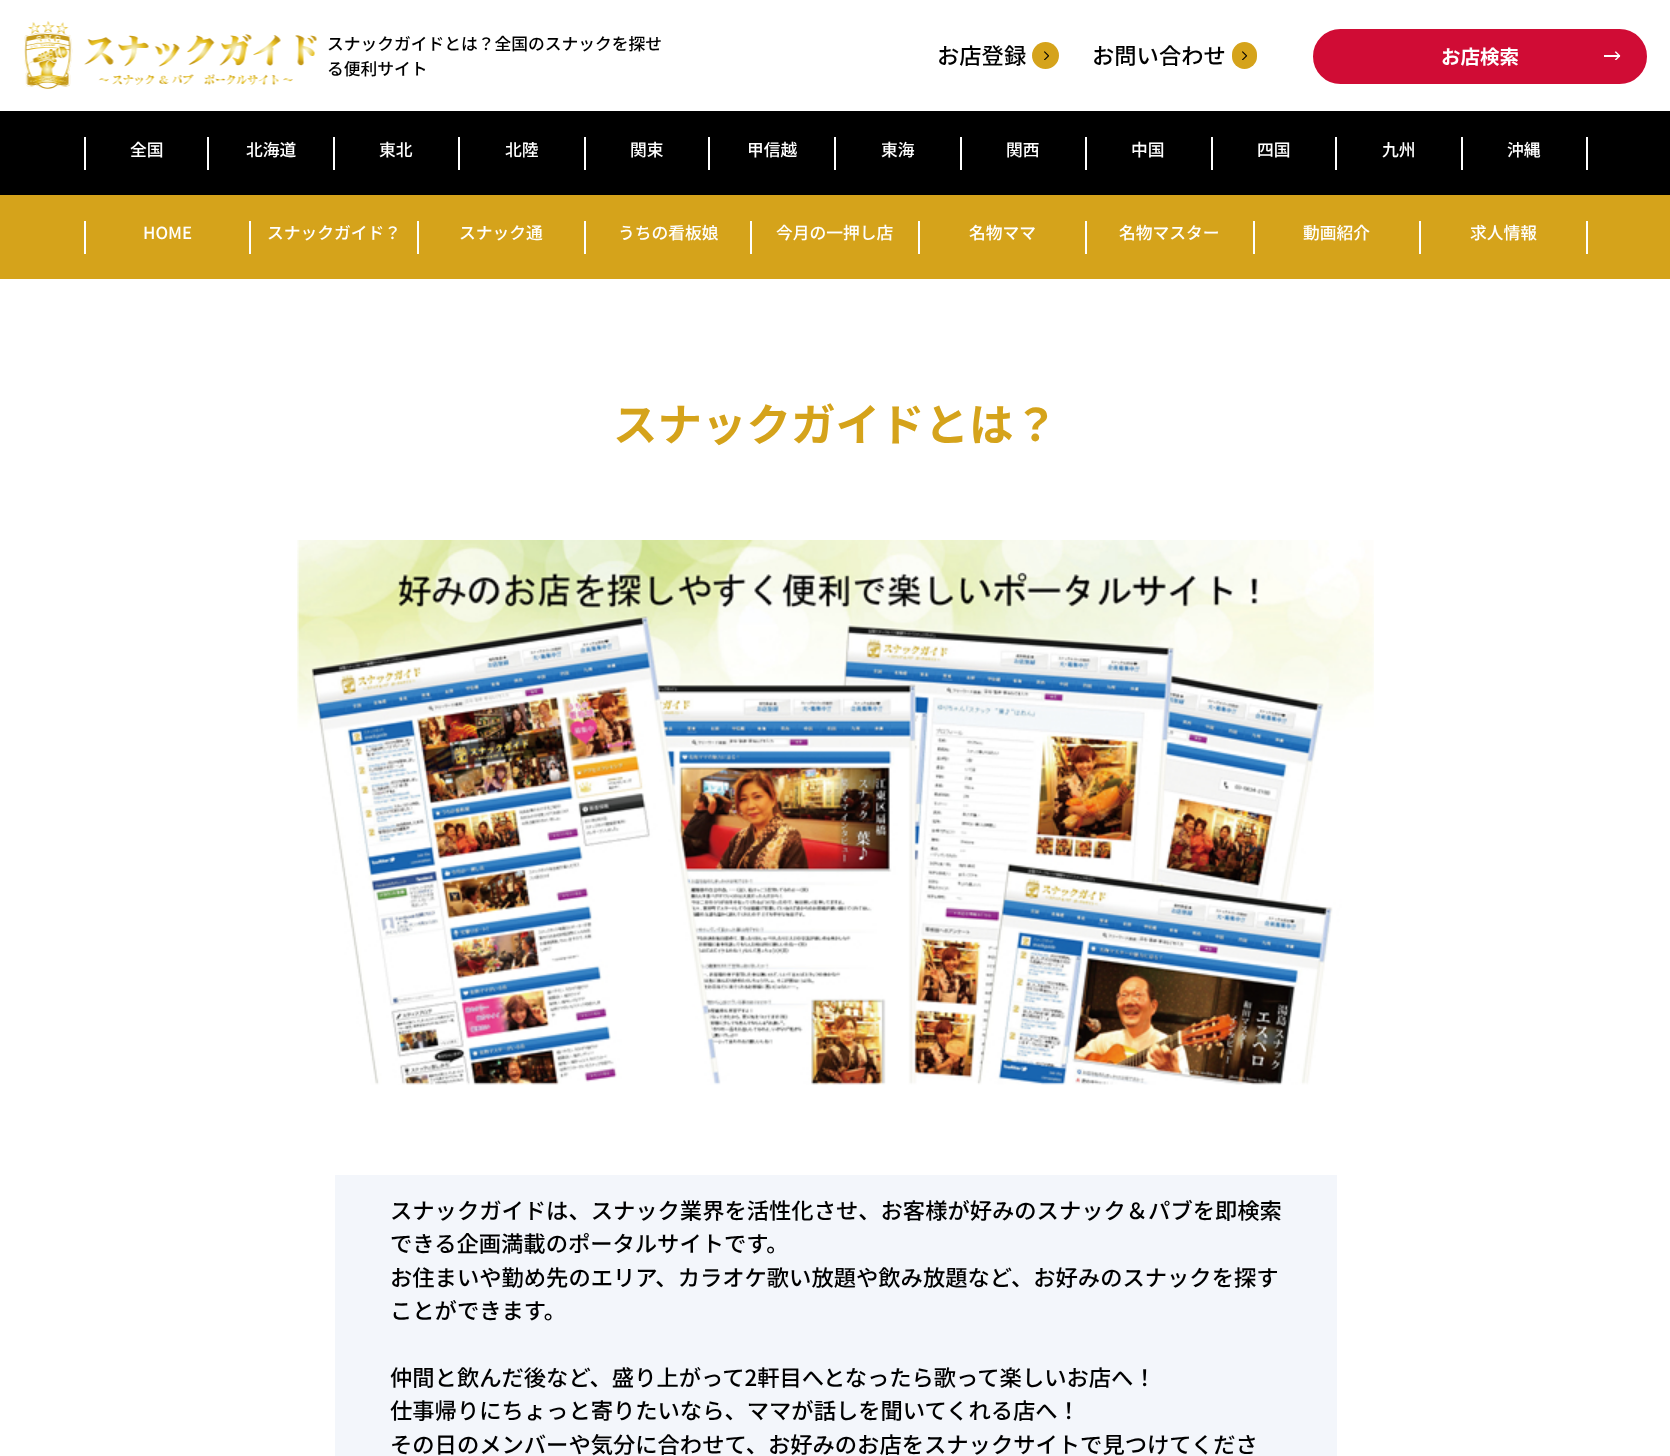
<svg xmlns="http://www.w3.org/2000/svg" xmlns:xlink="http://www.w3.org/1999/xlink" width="1670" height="1456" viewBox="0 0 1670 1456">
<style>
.cls-1{font:500 16.75px Noto Sans JP;fill:#000000}
.cls-2{font:500 22.3px Noto Sans JP;fill:#000000}
.cls-3{font:bold 19.5px Noto Sans JP;fill:#ffffff}
.cls-4{font:500 16.75px Noto Sans JP;fill:#ffffff}
.cls-5{font:bold 44.5px Noto Sans JP;fill:#d5a31b}
</style>
<rect width="100%" height="100%" fill="#ffffff"/>
<image xlink:href="image0.png" x="24" y="21" width="293" height="68"/>
<circle fill="#d5a31b" cx="1045.5" cy="55.5" r="13.5"/>
<image xlink:href="image1.png" x="1044" y="51" width="5" height="9"/>
<rect fill="#d5a31b" x="1232" y="42" width="25" height="27" rx="12.5"/>
<image xlink:href="image2.png" x="1242" y="51" width="6" height="9"/>
<rect fill="#d00c35" stroke="#d00c35" stroke-width="2" x="1314" y="30" width="332" height="53" rx="26.5"/>
<image xlink:href="image3.png" x="1604" y="51" width="17" height="9"/>
<rect fill="#000000" x="0" y="111" width="1670" height="84"/>
<rect fill="#ffffff" x="207" y="137" width="2" height="33"/>
<rect fill="#ffffff" x="84" y="137" width="2" height="33"/>
<rect fill="#ffffff" x="333" y="137" width="2" height="33"/>
<rect fill="#ffffff" x="458" y="137" width="2" height="33"/>
<rect fill="#ffffff" x="584" y="137" width="2" height="33"/>
<rect fill="#ffffff" x="708" y="137" width="2" height="33"/>
<rect fill="#ffffff" x="834" y="137" width="2" height="33"/>
<rect fill="#ffffff" x="960" y="137" width="2" height="33"/>
<rect fill="#ffffff" x="1085" y="137" width="2" height="33"/>
<rect fill="#ffffff" x="1211" y="137" width="2" height="33"/>
<rect fill="#ffffff" x="1335" y="137" width="2" height="33"/>
<rect fill="#ffffff" x="1461" y="137" width="2" height="33"/>
<rect fill="#ffffff" x="1586" y="137" width="2" height="33"/>
<rect fill="#d5a31b" x="0" y="195" width="1670" height="84"/>
<rect fill="#ffffff" x="249" y="221" width="2" height="33"/>
<rect fill="#ffffff" x="84" y="221" width="2" height="33"/>
<rect fill="#ffffff" x="417" y="221" width="2" height="33"/>
<rect fill="#ffffff" x="584" y="221" width="2" height="33"/>
<rect fill="#ffffff" x="750" y="221" width="2" height="33"/>
<rect fill="#ffffff" x="918" y="221" width="2" height="33"/>
<rect fill="#ffffff" x="1085" y="221" width="2" height="33"/>
<rect fill="#ffffff" x="1253" y="221" width="2" height="33"/>
<rect fill="#ffffff" x="1419" y="221" width="2" height="33"/>
<rect fill="#ffffff" x="1586" y="221" width="2" height="33"/>
<image xlink:href="image4.png" x="297" y="540" width="1077" height="545"/>
<rect fill="#f3f6fb" x="335" y="1175" width="1002" height="281"/>
<text class="cls-1"><tspan x="327" y="50">スナックガイドとは？全国のスナックを探せ</tspan><tspan x="327" y="75">る便利サイト</tspan></text>
<text class="cls-2" x="937" y="64">お店登録</text>
<text class="cls-2" x="1092" y="64">お問い合わせ</text>
<text class="cls-3" x="1441" y="64">お店検索</text>
<text class="cls-4" x="130" y="156">全国</text>
<text class="cls-4" x="246" y="156">北海道</text>
<text class="cls-4" x="379" y="156">東北</text>
<text class="cls-4" x="505" y="156">北陸</text>
<text class="cls-4" x="630" y="156">関束</text>
<text class="cls-4" x="747" y="156">甲信越</text>
<text class="cls-4" x="881" y="156">東海</text>
<text class="cls-4" x="1006" y="156">関西</text>
<text class="cls-4" x="1131" y="156">中国</text>
<text class="cls-4" x="1257" y="156">四国</text>
<text class="cls-4" x="1382" y="156">九州</text>
<text class="cls-4" x="1507" y="156">沖縄</text>
<text class="cls-4" x="143" y="239">HOME</text>
<text class="cls-4" x="267" y="239">スナックガイド？</text>
<text class="cls-4" x="459" y="239">スナック通</text>
<text class="cls-4" x="618" y="239">うちの看板娘</text>
<text class="cls-4" x="776" y="239">今月の一押し店</text>
<text class="cls-4" x="969" y="239">名物ママ</text>
<text class="cls-4" x="1119" y="239">名物マスター</text>
<text class="cls-4" x="1303" y="239">動画紹介</text>
<text class="cls-4" x="1470" y="239">求人情報</text>
<text class="cls-5" x="613" y="441">スナックガイドとは？</text>
<text class="cls-2"><tspan x="390" y="1219">スナックガイドは、スナック業界を活性化させ、お客様が好みのスナック＆パブを即検索</tspan><tspan x="390" y="1252">できる企画満載のポータルサイトです。</tspan><tspan x="390" y="1286">お住まいや勤め先のエリア、カラオケ歌い放題や飲み放題など、お好みのスナックを探す</tspan><tspan x="390" y="1319">ことができます。</tspan></text>
<text class="cls-2"><tspan x="390" y="1386">仲間と飲んだ後など、盛り上がって2軒目へとなったら歌って楽しいお店へ！</tspan><tspan x="390" y="1419">仕事帰りにちょっと寄りたいなら、ママが話しを聞いてくれる店へ！</tspan><tspan x="390" y="1453">その日のメンバーや気分に合わせて、お好みのお店をスナックサイトで見つけてくださ</tspan></text>
</svg>
